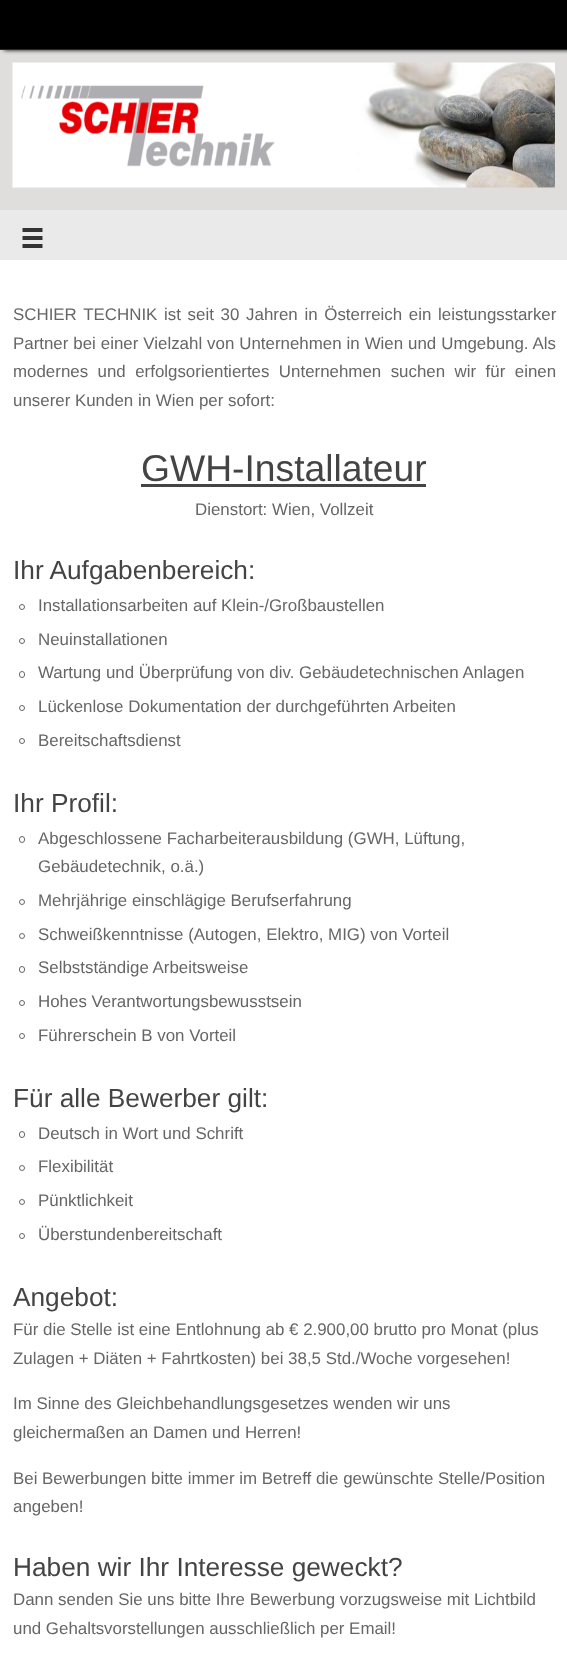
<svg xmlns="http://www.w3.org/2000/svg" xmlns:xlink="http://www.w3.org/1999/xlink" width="567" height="1673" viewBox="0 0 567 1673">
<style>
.cls-1{font:16.9px Liberation Sans;fill:#666666}
.cls-2{font:37.25px Liberation Sans;fill:#444444}
.cls-3{font:26.25px Liberation Sans;fill:#444444}
</style>
<rect width="100%" height="100%" fill="#dfdedd"/>
<rect fill="#000000" filter="blur(2px)" x="4" y="0" width="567" height="50"/>
<rect fill="#000000" x="0" y="0" width="567" height="49"/>
<rect fill="#282828" x="0" y="49" width="567" height="1"/>
<image xlink:href="image0.png" x="12" y="62" width="543" height="126"/>
<rect fill="#eaeaea" x="0" y="210" width="567" height="50"/>
<image xlink:href="image1.png" x="22" y="228" width="21" height="20"/>
<rect fill="#ffffff" x="0" y="260" width="567" height="1413"/>
<rect fill="#444444" x="141" y="484" width="285" height="3"/>
<circle fill="none" stroke="#666666" cx="22" cy="607" r="2.5"/>
<circle fill="none" stroke="#666666" cx="22" cy="641" r="2.5"/>
<rect fill="none" stroke="#666666" x="19.5" y="671.5" width="5" height="6" rx="2.5"/>
<circle fill="none" stroke="#666666" cx="22" cy="708" r="2.5"/>
<circle fill="none" stroke="#666666" cx="22" cy="741" r="2.5"/>
<rect fill="none" stroke="#666666" x="19.5" y="836.5" width="5" height="6" rx="2.5"/>
<circle fill="none" stroke="#666666" cx="22" cy="902" r="2.5"/>
<circle fill="none" stroke="#666666" cx="22" cy="936" r="2.5"/>
<rect fill="none" stroke="#666666" x="19.5" y="966.5" width="5" height="6" rx="2.5"/>
<circle fill="none" stroke="#666666" cx="22" cy="1003" r="2.5"/>
<circle fill="none" stroke="#666666" cx="22" cy="1036" r="2.5"/>
<rect fill="none" stroke="#666666" x="19.5" y="1131.5" width="5" height="6" rx="2.5"/>
<circle fill="none" stroke="#666666" cx="22" cy="1168" r="2.5"/>
<circle fill="none" stroke="#666666" cx="22" cy="1202" r="2.5"/>
<circle fill="none" stroke="#666666" cx="22" cy="1236" r="2.5"/>
<text class="cls-1"><tspan x="13" y="320" word-spacing="2">SCHIER TECHNIK ist seit 30 Jahren in Österreich ein leistungsstarker</tspan><tspan x="13" y="349" word-spacing="0.25">Partner bei einer Vielzahl von Unternehmen in Wien und Umgebung. Als</tspan><tspan x="13" y="377" word-spacing="4.75">modernes und erfolgsorientiertes Unternehmen suchen wir für einen</tspan><tspan x="13" y="406">unserer Kunden in Wien per sofort:</tspan></text>
<text class="cls-2" x="141" y="481">GWH-Installateur</text>
<text class="cls-1" x="195" y="515">Dienstort: Wien, Vollzeit</text>
<text class="cls-3" x="13" y="579">Ihr Aufgabenbereich:</text>
<text class="cls-1" x="38" y="611">Installationsarbeiten auf Klein-/Großbaustellen</text>
<text class="cls-1"><tspan x="38" y="645">Neuinstallationen</tspan><tspan x="38" y="678">Wartung und Überprüfung von div. Gebäudetechnischen Anlagen</tspan></text>
<text class="cls-1" x="38" y="712">Lückenlose Dokumentation der durchgeführten Arbeiten</text>
<text class="cls-1" x="38" y="746">Bereitschaftsdienst</text>
<text class="cls-3" x="13" y="812">Ihr Profil:</text>
<text class="cls-1"><tspan x="38" y="844">Abgeschlossene Facharbeiterausbildung (GWH, Lüftung,</tspan><tspan x="38" y="872">Gebäudetechnik, o.ä.)</tspan></text>
<text class="cls-1" x="38" y="906">Mehrjährige einschlägige Berufserfahrung</text>
<text class="cls-1"><tspan x="38" y="940">Schweißkenntnisse (Autogen, Elektro, MIG) von Vorteil</tspan><tspan x="38" y="973">Selbstständige Arbeitsweise</tspan></text>
<text class="cls-1" x="38" y="1007">Hohes Verantwortungsbewusstsein</text>
<text class="cls-1" x="38" y="1041">Führerschein B von Vorteil</text>
<text class="cls-3" x="13" y="1107">Für alle Bewerber gilt:</text>
<text class="cls-1"><tspan x="38" y="1139">Deutsch in Wort und Schrift</tspan><tspan x="38" y="1172">Flexibilität</tspan></text>
<text class="cls-1" x="38" y="1206">Pünktlichkeit</text>
<text class="cls-1" x="38" y="1240">Überstundenbereitschaft</text>
<text class="cls-3" x="13" y="1306">Angebot:</text>
<text class="cls-1"><tspan x="13" y="1335">Für die Stelle ist eine Entlohnung ab € 2.900,00 brutto pro Monat (plus</tspan><tspan x="13" y="1364">Zulagen + Diäten + Fahrtkosten) bei 38,5 Std./Woche vorgesehen!</tspan></text>
<text class="cls-1"><tspan x="13" y="1409">Im Sinne des Gleichbehandlungsgesetzes wenden wir uns</tspan><tspan x="13" y="1438">gleichermaßen an Damen und Herren!</tspan></text>
<text class="cls-1"><tspan x="13" y="1484">Bei Bewerbungen bitte immer im Betreff die gewünschte Stelle/Position</tspan><tspan x="13" y="1512">angeben!</tspan></text>
<text class="cls-3" x="13" y="1576">Haben wir Ihr Interesse geweckt?</text>
<text class="cls-1"><tspan x="13" y="1605">Dann senden Sie uns bitte Ihre Bewerbung vorzugsweise mit Lichtbild</tspan><tspan x="13" y="1634">und Gehaltsvorstellungen ausschließlich per Email!</tspan></text>
</svg>
